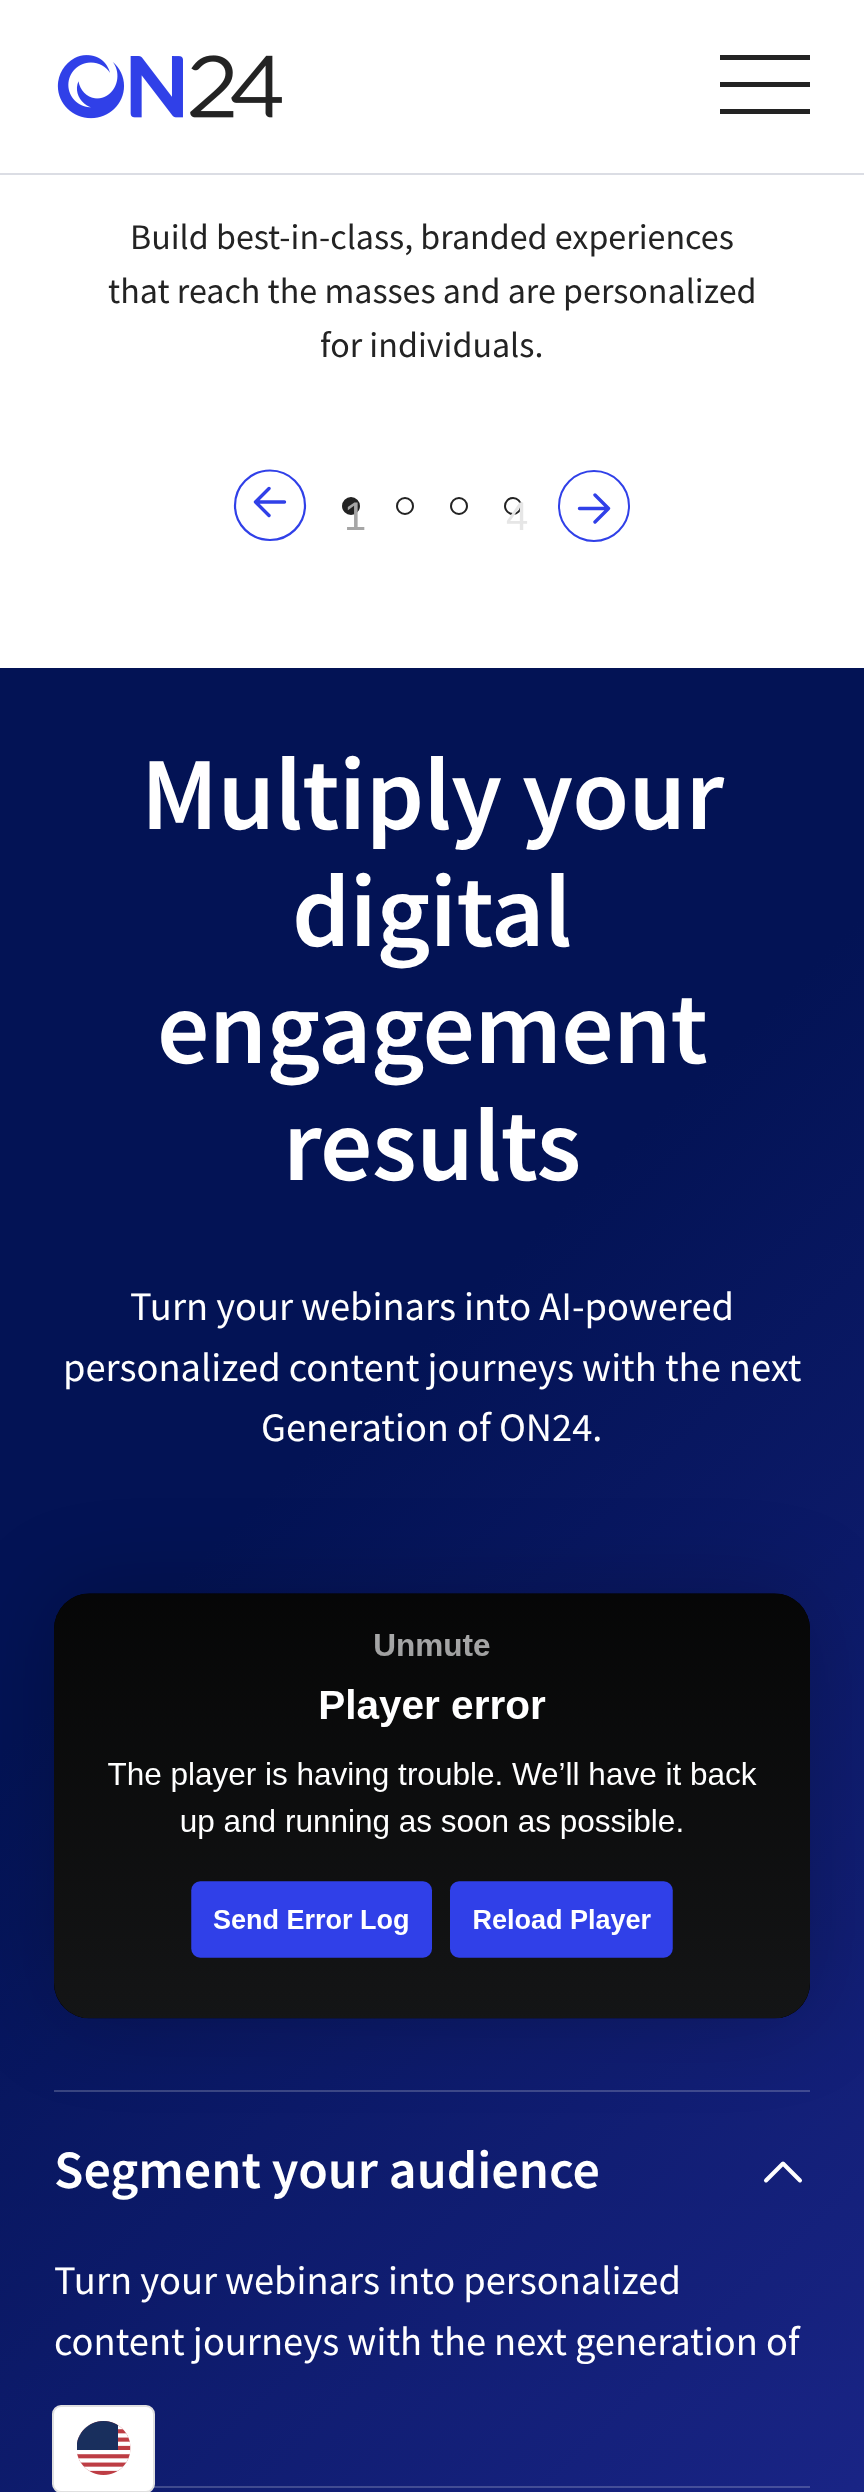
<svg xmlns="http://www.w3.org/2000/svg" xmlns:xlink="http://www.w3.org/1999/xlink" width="864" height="2492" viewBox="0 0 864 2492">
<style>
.cls-1{font:36px Source Sans Pro;fill:#232323}
.cls-2{font:40px Liberation Sans;fill:#a6a6a6}
.cls-3{font:40px Liberation Sans;fill:#e6e6e6}
.cls-4{font:600 103.5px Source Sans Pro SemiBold;letter-spacing:-0.5px;fill:#ffffff}
.cls-5{font:40.5px Source Sans Pro;fill:#ffffff}
.cls-6{font:600 54px Source Sans Pro SemiBold;fill:#ffffff}
</style>
<defs>
<linearGradient id="g1" gradientUnits="userSpaceOnUse" x1="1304" y1="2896" x2="-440" y2="1093"><stop offset="0.14" stop-color="#1e2890"/><stop offset="0.69" stop-color="#031355"/></linearGradient>
<linearGradient id="g2" gradientUnits="userSpaceOnUse" x1="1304" y1="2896" x2="-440" y2="1093"><stop offset="0.14" stop-color="#4b53a6"/><stop offset="0.69" stop-color="#354277"/></linearGradient>
</defs>
<rect width="100%" height="100%" fill="#ffffff"/>
<rect fill="#dbdde4" x="0" y="173" width="864" height="2"/>
<image xlink:href="image0.png" x="57" y="55" width="225" height="64"/>
<rect fill="#232323" x="720" y="55" width="90" height="5"/>
<rect fill="#232323" x="720" y="82" width="90" height="5"/>
<rect fill="#232323" x="720" y="109" width="90" height="5"/>
<path fill="none" stroke="#3040e8" stroke-width="2.2" d="M270 540C250.5 540 235 524.5 235 505.5C235 486 250.5 470.5 270 470.5C289.5 470.5 305 486 305 505.5C305 524.5 289.5 540 270 540Z"/>
<path fill="none" stroke="#3040e8" stroke-width="3.4" stroke-linecap="round" stroke-linejoin="round" d="M284.5 502H255.5M255.5 502L269 515.5M255.5 502L269 488.5"/>
<circle fill="#232323" stroke="#232323" stroke-width="2" cx="351" cy="506" r="8"/>
<circle fill="none" stroke="#232323" stroke-width="2" cx="405" cy="506" r="8"/>
<circle fill="none" stroke="#232323" stroke-width="2" cx="459" cy="506" r="8"/>
<circle fill="none" stroke="#232323" stroke-width="2" cx="513" cy="506" r="8"/>
<circle fill="none" stroke="#3040e8" stroke-width="2" cx="594" cy="506" r="35"/>
<path fill="none" stroke="#3040e8" stroke-width="3.4" stroke-linecap="round" stroke-linejoin="round" d="M579.5 508.5H608.5M608.5 508.5L595 495M608.5 508.5L595 522"/>
<rect fill="url(#g1)" x="0" y="668" width="864" height="1824"/>
<rect fill="url(#g2)" x="154" y="2486" width="656" height="2"/>
<rect fill="url(#g2)" x="54" y="2090" width="756" height="2"/>
<rect fill="#000000" fill-opacity="0.22" filter="blur(45px)" x="54" y="1593" width="756" height="425" rx="36"/>
<image xlink:href="image1.png" x="54" y="1593" width="756" height="426"/>
<path fill="none" stroke="#ffffff" stroke-width="4" stroke-linecap="round" stroke-linejoin="round" d="M766 2180.5L783 2163.5L800 2180.5"/>
<rect fill="#ffffff" stroke="#e0e0e0" stroke-width="2" x="53" y="2406" width="101" height="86" rx="8"/>
<image xlink:href="image2.png" x="77" y="2421" width="54" height="54"/>
<text class="cls-1" x="130" y="249">Build best-in-class, branded experiences</text>
<text class="cls-1" x="108" y="303">that reach the masses and are personalized</text>
<text class="cls-1" x="320" y="357">for individuals.</text>
<text class="cls-2" x="344" y="530">1</text>
<text class="cls-3" x="506" y="530">4</text>
<text class="cls-4" x="141" y="829">Multiply your</text>
<text class="cls-4" x="292" y="946">digital</text>
<text class="cls-4" x="157" y="1063">engagement</text>
<text class="cls-4" x="283" y="1180">results</text>
<text class="cls-5" x="130" y="1320">Turn your webinars into AI-powered</text>
<text class="cls-5" x="63" y="1381">personalized content journeys with the next</text>
<text class="cls-5" x="261" y="1441">Generation of ON24.</text>
<text class="cls-6" x="54" y="2188">Segment your audience</text>
<text class="cls-5"><tspan x="54" y="2294">Turn your webinars into personalized</tspan><tspan x="54" y="2355">content journeys with the next generation of</tspan></text>
</svg>
